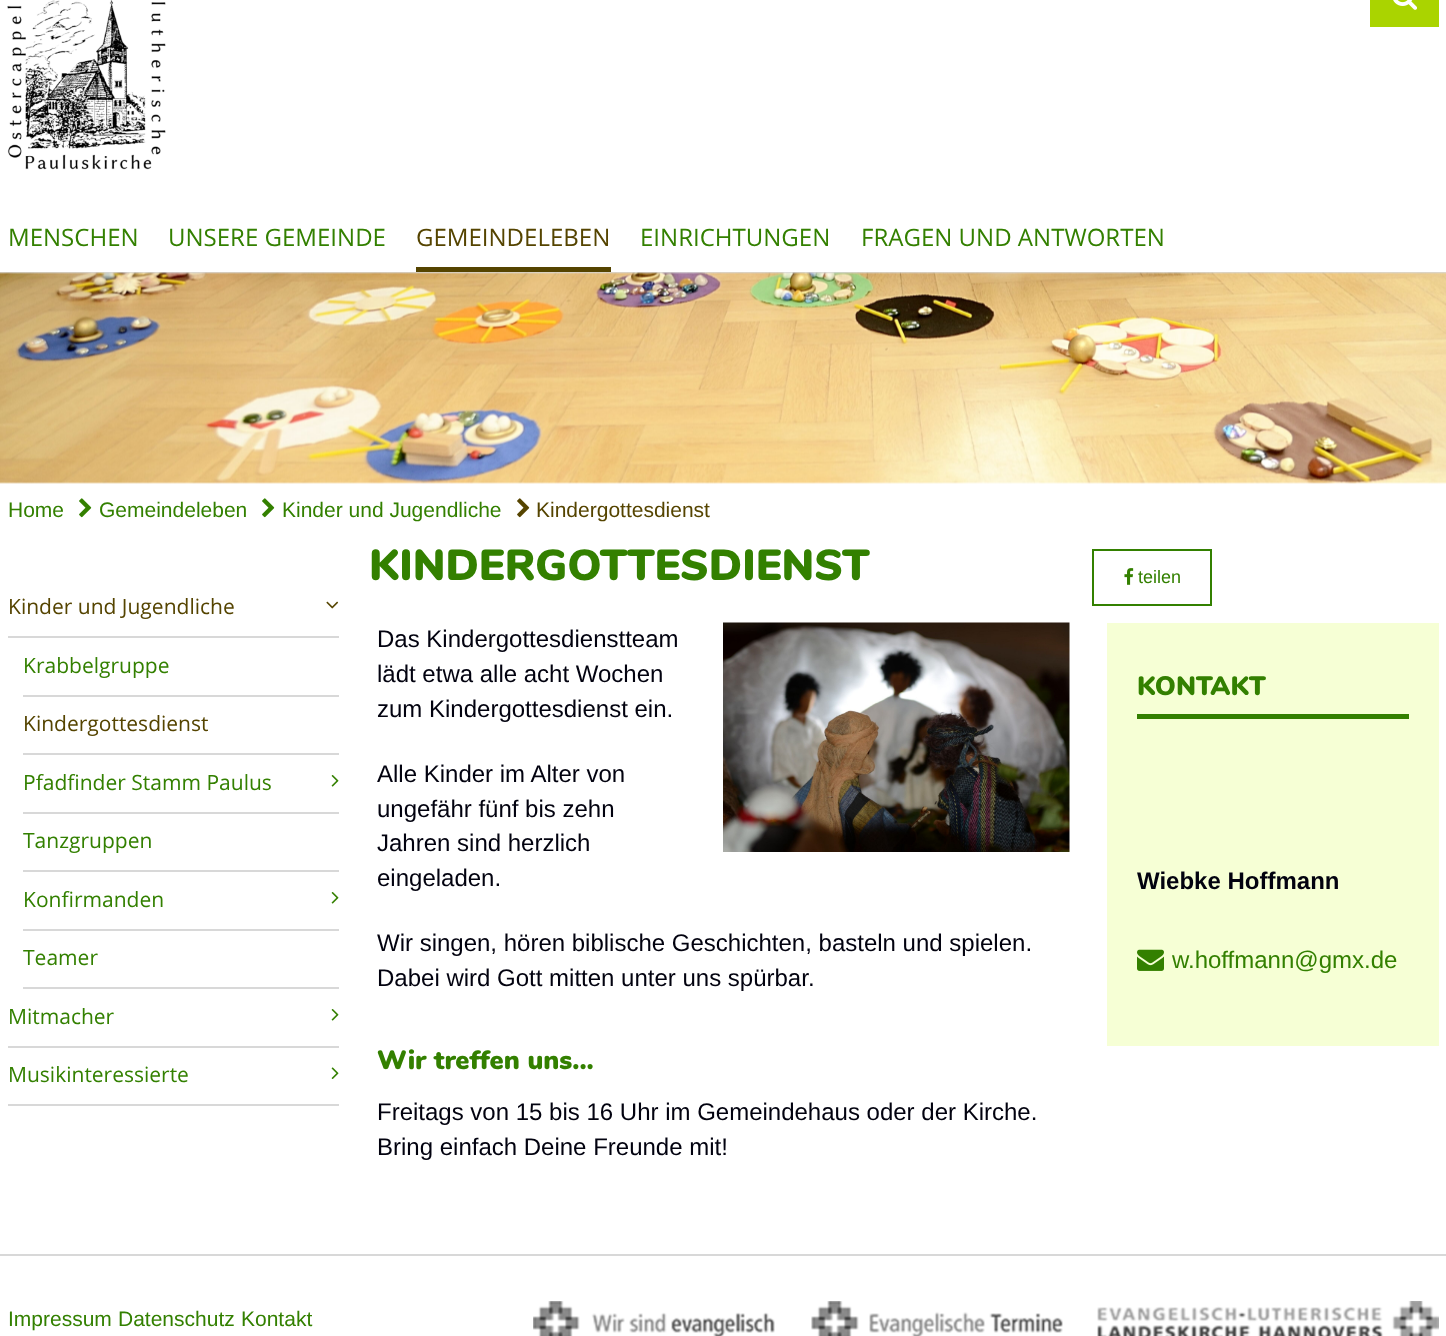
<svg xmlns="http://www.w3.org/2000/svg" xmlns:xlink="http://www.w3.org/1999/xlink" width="1446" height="1336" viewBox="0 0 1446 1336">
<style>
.cls-1{font:24px Open Sans;fill:#338000}
.cls-2{font:24px Open Sans;fill:#554400}
.cls-3{font:21px Liberation Sans;fill:#338000}
.cls-4{font:21px Liberation Sans;fill:#554400}
.cls-5{font:21px Open Sans;fill:#554400}
.cls-6{font:21px Open Sans;fill:#338000}
.cls-7{font:900 43.25px Nunito;fill:#338000}
.cls-8{font:18px Liberation Sans;fill:#338000}
.cls-9{font:24px Liberation Sans;fill:#02020f}
.cls-10{font:900 26.5px Nunito;fill:#338000}
.cls-11{font:bold 24px Liberation Sans;fill:#02020f}
.cls-12{font:24px Liberation Sans;fill:#338000}
</style>
<rect width="100%" height="100%" fill="#ffffff"/>
<rect fill="#d8d8d8" x="0" y="272" width="1446" height="2"/>
<image xlink:href="image0.png" x="7" y="0" width="159" height="170"/>
<rect fill="#aad400" x="1370" y="0" width="69" height="27"/>
<image xlink:href="image1.png" x="1393" y="0" width="24" height="10"/>
<rect fill="#554400" x="416" y="267" width="195" height="5"/>
<image xlink:href="image2.png" x="0" y="272" width="1446" height="212"/>
<image xlink:href="image3.png" x="79" y="498" width="13" height="20"/>
<image xlink:href="image3.png" x="262" y="498" width="13" height="20"/>
<image xlink:href="image4.png" x="517" y="498" width="13" height="20"/>
<rect fill="#d8d8d8" x="8" y="636" width="331" height="2"/>
<image xlink:href="image5.png" x="326" y="601" width="13" height="8"/>
<rect fill="#d8d8d8" x="23" y="695" width="316" height="2"/>
<rect fill="#d8d8d8" x="23" y="753" width="316" height="2"/>
<rect fill="#d8d8d8" x="23" y="812" width="316" height="2"/>
<image xlink:href="image6.png" x="331" y="775" width="8" height="12"/>
<rect fill="#d8d8d8" x="23" y="870" width="316" height="2"/>
<rect fill="#d8d8d8" x="23" y="929" width="316" height="2"/>
<image xlink:href="image6.png" x="331" y="892" width="8" height="12"/>
<rect fill="#d8d8d8" x="23" y="987" width="316" height="2"/>
<rect fill="#d8d8d8" x="8" y="1046" width="331" height="2"/>
<image xlink:href="image6.png" x="331" y="1009" width="8" height="12"/>
<rect fill="#d8d8d8" x="8" y="1104" width="331" height="2"/>
<image xlink:href="image7.png" x="331" y="1067" width="8" height="12"/>
<rect fill="none" stroke="#338000" stroke-width="2" x="1093" y="550" width="118" height="55"/>
<image xlink:href="image8.png" x="1124" y="568" width="10" height="17"/>
<image xlink:href="image9.png" x="723" y="622" width="347" height="230"/>
<rect fill="#f6ffd5" x="1107" y="623" width="332" height="423"/>
<rect fill="#338000" x="1137" y="714" width="272" height="5"/>
<image xlink:href="image10.png" x="1137" y="949" width="27" height="22"/>
<rect fill="#d8d8d8" x="0" y="1254" width="1446" height="2"/>
<image xlink:href="image11.png" x="533" y="1301" width="242" height="35"/>
<image xlink:href="image12.png" x="811" y="1301" width="252" height="35"/>
<image xlink:href="image13.png" x="1097" y="1301" width="342" height="35"/>
<text class="cls-1" x="8" y="246">MENSCHEN</text>
<text class="cls-1" x="168" y="246">UNSERE GEMEINDE</text>
<text class="cls-2" x="416" y="246">GEMEINDELEBEN</text>
<text class="cls-1" x="640" y="246">EINRICHTUNGEN</text>
<text class="cls-1" x="861" y="246">FRAGEN UND ANTWORTEN</text>
<text class="cls-3" x="8" y="517">Home</text>
<text class="cls-3" x="99" y="517">Gemeindeleben</text>
<text class="cls-3" x="282" y="517">Kinder und Jugendliche</text>
<text class="cls-4" x="536" y="517">Kindergottesdienst</text>
<text class="cls-5" x="8" y="614">Kinder und Jugendliche</text>
<text class="cls-6" x="23" y="673">Krabbelgruppe</text>
<text class="cls-5" x="23" y="731">Kindergottesdienst</text>
<text class="cls-6" x="23" y="790">Pfadfinder Stamm Paulus</text>
<text class="cls-6" x="23" y="848">Tanzgruppen</text>
<text class="cls-6" x="23" y="907">Konfirmanden</text>
<text class="cls-6" x="23" y="965">Teamer</text>
<text class="cls-6" x="8" y="1024">Mitmacher</text>
<text class="cls-6" x="8" y="1082">Musikinteressierte</text>
<text class="cls-7" x="369" y="580">KINDERGOTTESDIENST</text>
<text class="cls-8" x="1138" y="583">teilen</text>
<text class="cls-9"><tspan x="377" y="647">Das Kindergottesdienstteam</tspan><tspan x="377" y="682">lädt etwa alle acht Wochen</tspan><tspan x="377" y="717">zum Kindergottesdienst ein.</tspan></text>
<text class="cls-9"><tspan x="377" y="782">Alle Kinder im Alter von</tspan><tspan x="377" y="817">ungefähr fünf bis zehn</tspan><tspan x="377" y="851">Jahren sind herzlich</tspan><tspan x="377" y="886">eingeladen.</tspan></text>
<text class="cls-9"><tspan x="377" y="951">Wir singen, hören biblische Geschichten, basteln und spielen.</tspan><tspan x="377" y="986">Dabei wird Gott mitten unter uns spürbar.</tspan></text>
<text class="cls-10" x="377" y="1069">Wir treffen uns...</text>
<text class="cls-9"><tspan x="377" y="1120">Freitags von 15 bis 16 Uhr im Gemeindehaus oder der Kirche.</tspan><tspan x="377" y="1155">Bring einfach Deine Freunde mit!</tspan></text>
<text class="cls-10" x="1137" y="695">KONTAKT</text>
<text class="cls-11" x="1137" y="889">Wiebke Hoffmann</text>
<text class="cls-12" x="1172" y="968">w.hoffmann@gmx.de</text>
<text class="cls-3" x="8" y="1326">Impressum</text>
<text class="cls-3" x="118" y="1326">Datenschutz</text>
<text class="cls-3" x="241" y="1326">Kontakt</text>
</svg>
